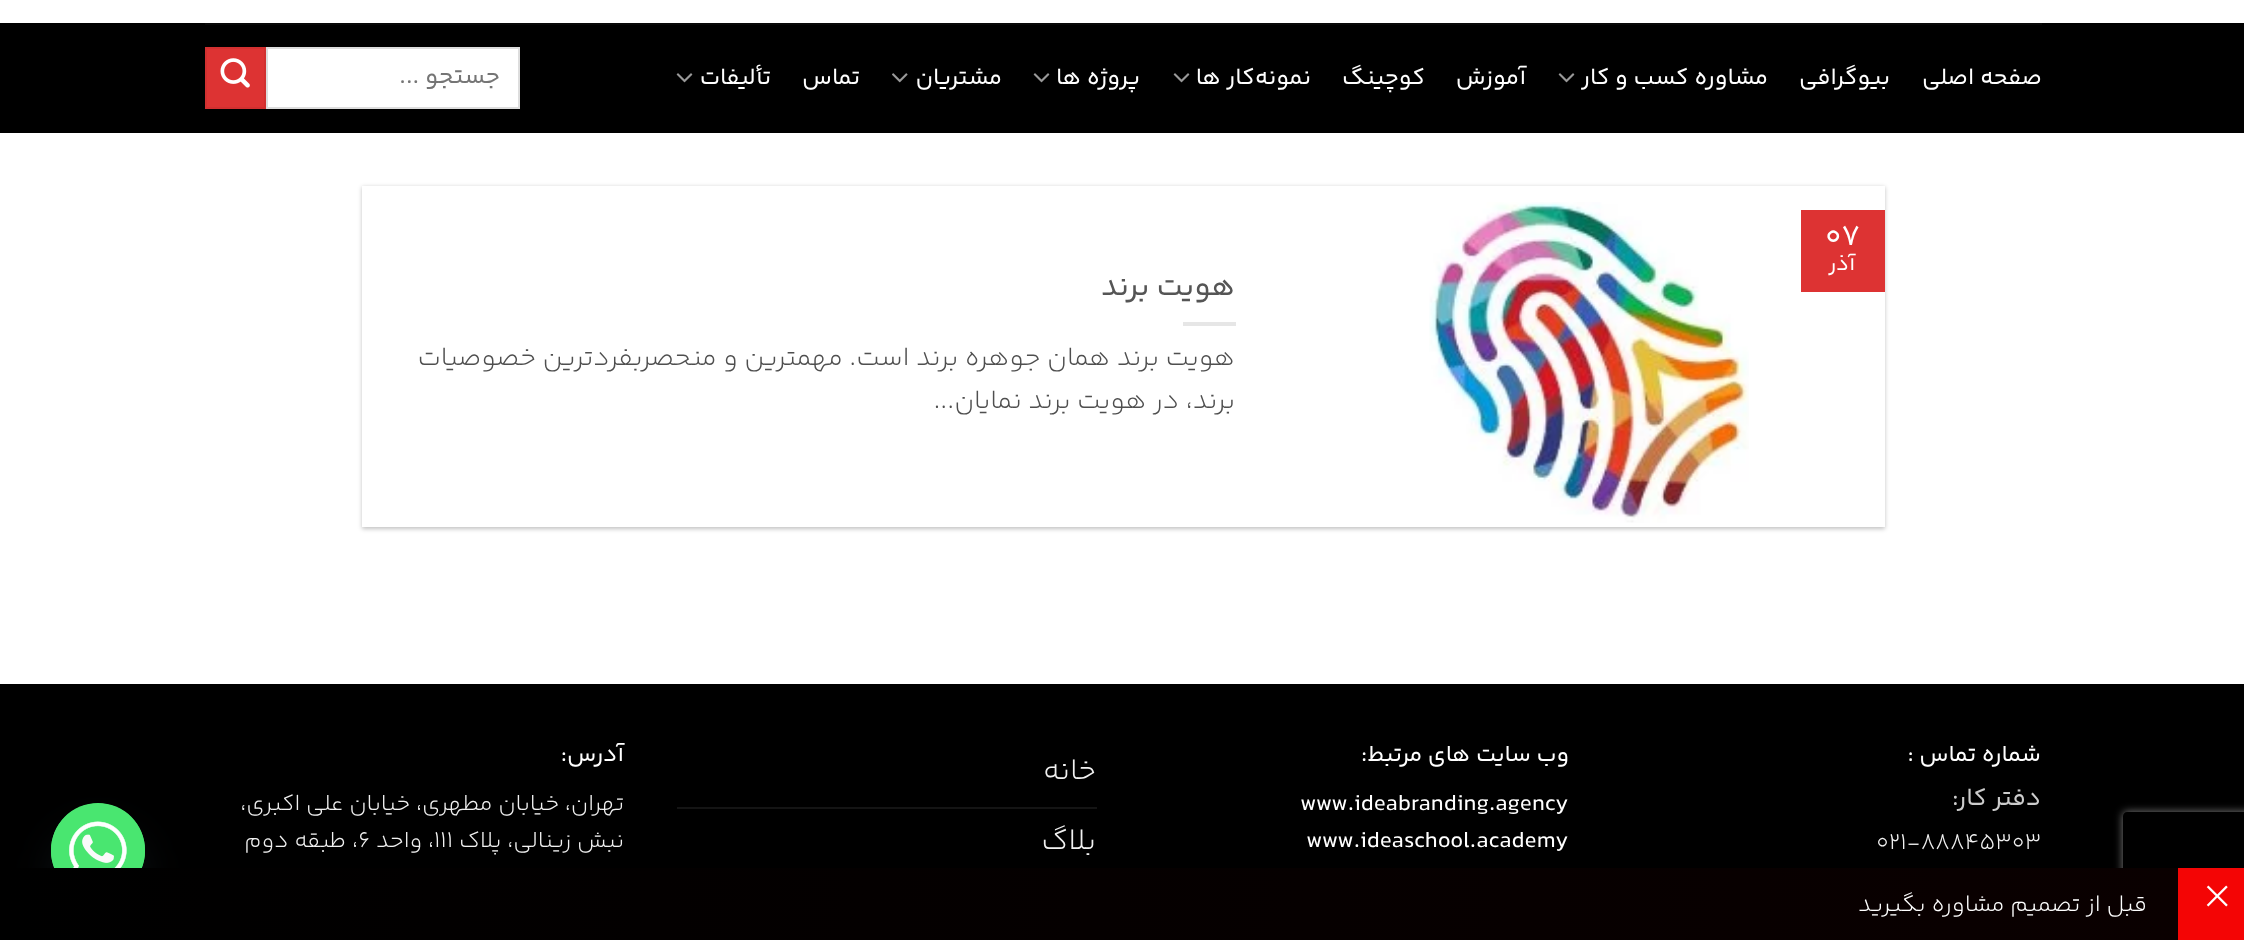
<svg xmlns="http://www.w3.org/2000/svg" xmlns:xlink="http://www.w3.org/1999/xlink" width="2244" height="940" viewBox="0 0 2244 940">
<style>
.cls-1{font:23.75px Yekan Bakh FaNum;direction:rtl;fill:#ffffff}
.cls-2{font:24.5px Yekan Bakh FaNum;direction:rtl;fill:#757575}
.cls-3{font:30px Yekan Bakh FaNum;fill:#ffffff}
.cls-4{font:21px Yekan Bakh FaNum;direction:rtl;fill:#ffffff}
.cls-5{font:30.5px Yekan Bakh FaNum;direction:rtl;fill:#555555}
.cls-6{font:300 26.7px Yekan Bakh FaNum;direction:rtl;fill:#4f4f4f}
.cls-7{font:23.3px Yekan Bakh FaNum;direction:rtl;fill:#ffffff}
.cls-8{font:25px Yekan Bakh FaNum;direction:rtl;fill:#cccccc}
.cls-9{font:300 23.3px Yekan Bakh FaNum;fill:#f1f1f1}
.cls-10{font:23.3px Yekan Bakh FaNum;fill:#ffffff}
.cls-11{font:300 30px Yekan Bakh FaNum;direction:rtl;fill:#f1f1f1}
.cls-12{font:300 23.3px Yekan Bakh FaNum;direction:rtl;fill:#f1f1f1}
.cls-13{font:300 23.75px Yekan Bakh FaNum;direction:rtl;fill:#ffffff}
</style>
<defs>
<clipPath id="clip1"><path d="M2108 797H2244V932H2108ZM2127 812H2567C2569 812 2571 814 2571 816V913C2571 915 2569 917 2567 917H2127C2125 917 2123 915 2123 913V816C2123 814 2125 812 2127 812Z" clip-rule="evenodd"/></clipPath>
<linearGradient id="g1" gradientUnits="userSpaceOnUse" x1="0" y1="905" x2="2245" y2="905"><stop offset="0" stop-color="#000000"/><stop offset="0.97" stop-color="#0a0000"/><stop offset="0.97" stop-color="#f40505"/></linearGradient>
</defs>
<rect width="100%" height="100%" fill="#ffffff"/>
<rect fill="#000000" x="0" y="684" width="2244" height="184"/>
<g clip-path="url(#clip1)">
<rect fill="#808080" filter="blur(4.5px)" x="2123" y="812" width="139" height="105" rx="4"/>
</g>
<rect fill="#000000" x="0" y="23" width="2244" height="110"/>
<rect fill="#080808" x="205" y="23" width="1837" height="2"/>
<image xlink:href="image0.png" x="1558" y="73" width="17" height="10"/>
<image xlink:href="image0.png" x="1173" y="73" width="17" height="10"/>
<image xlink:href="image0.png" x="1033" y="73" width="17" height="10"/>
<image xlink:href="image1.png" x="892" y="73" width="16" height="10"/>
<image xlink:href="image0.png" x="676" y="73" width="17" height="10"/>
<rect fill="#ffffff" stroke="#dddddd" stroke-width="2" x="267" y="48" width="252" height="60"/>
<rect fill="#dd3333" stroke="#d23030" stroke-width="2" x="206" y="48" width="59" height="60"/>
<image xlink:href="image2.png" x="220" y="58" width="30" height="30"/>
<rect fill="#000000" fill-opacity="0.24" filter="blur(2px)" x="362" y="187" width="1523" height="342"/>
<rect fill="#ffffff" x="362" y="186" width="1523" height="341"/>
<rect fill="#dd3333" x="1801" y="210" width="84" height="82"/>
<image xlink:href="image3.png" x="1429" y="202" width="320" height="321"/>
<rect fill="#e6e6e6" x="1183" y="322" width="53" height="4"/>
<rect fill="#141414" x="677" y="807" width="420" height="2"/>
<rect fill="#49687e" fill-opacity="0.16" filter="blur(21px)" x="51" y="831" width="94" height="95" rx="47"/>
<rect fill="#49e670" x="51" y="803" width="94" height="95" rx="47"/>
<image xlink:href="image4.png" x="51" y="803" width="94" height="65"/>
<rect fill="url(#g1)" x="0" y="868" width="2244" height="72"/>
<image xlink:href="image5.png" x="2206" y="885" width="22" height="22"/>
<text class="cls-1" x="2042" y="84">صفحه اصلی</text>
<text class="cls-1" x="1890" y="84">بیوگرافی</text>
<text class="cls-1" x="1768" y="84">مشاوره کسب و کار</text>
<text class="cls-1" x="1526" y="84">آموزش</text>
<text class="cls-1" x="1425" y="84">کوچینگ</text>
<text class="cls-1" x="1311" y="84">نمونه‌کار ها</text>
<text class="cls-1" x="1140" y="84">پروژه ها</text>
<text class="cls-1" x="1002" y="84">مشتریان</text>
<text class="cls-1" x="860" y="84">تماس</text>
<text class="cls-1" x="771" y="84">تألیفات</text>
<text class="cls-2" x="500" y="83">جستجو ...</text>
<text class="cls-3" x="1825" y="245">07</text>
<text class="cls-4" x="1855" y="270">آذر</text>
<text class="cls-5" x="1235" y="295">هویت برند</text>
<text class="cls-6"><tspan x="1235" y="365">هویت برند همان جوهره برند است. مهمترین و منحصربفردترین خصوصیات</tspan><tspan x="1235" y="408">برند، در هویت برند نمایان...</tspan></text>
<text class="cls-7" x="2041" y="761">شماره تماس :</text>
<text class="cls-8" x="2041" y="805">دفتر کار:</text>
<text class="cls-9" x="1876" y="849">021-88845303</text>
<text class="cls-7" x="1569" y="761">وب سایت های مرتبط:</text>
<text class="cls-10" x="1300" y="810">www.ideabranding.agency</text>
<text class="cls-10" x="1306" y="847">www.ideaschool.academy</text>
<text class="cls-11" x="1096" y="779">خانه</text>
<text class="cls-11" x="1096" y="849">بلاگ</text>
<text class="cls-7" x="624" y="761">آدرس:</text>
<text class="cls-12"><tspan x="624" y="810">تهران، خیابان مطهری، خیابان علی اکبری،</tspan><tspan x="624" y="847">نبش زینالی، پلاک</tspan></text>
<text class="cls-9" x="434" y="847">111</text>
<text class="cls-12" x="434" y="847">، واحد</text>
<text class="cls-9" x="358" y="847">6</text>
<text class="cls-12" x="358" y="847">، طبقه دوم</text>
<text class="cls-13" x="2147" y="911">قبل از تصمیم مشاوره بگیرید</text>
</svg>
